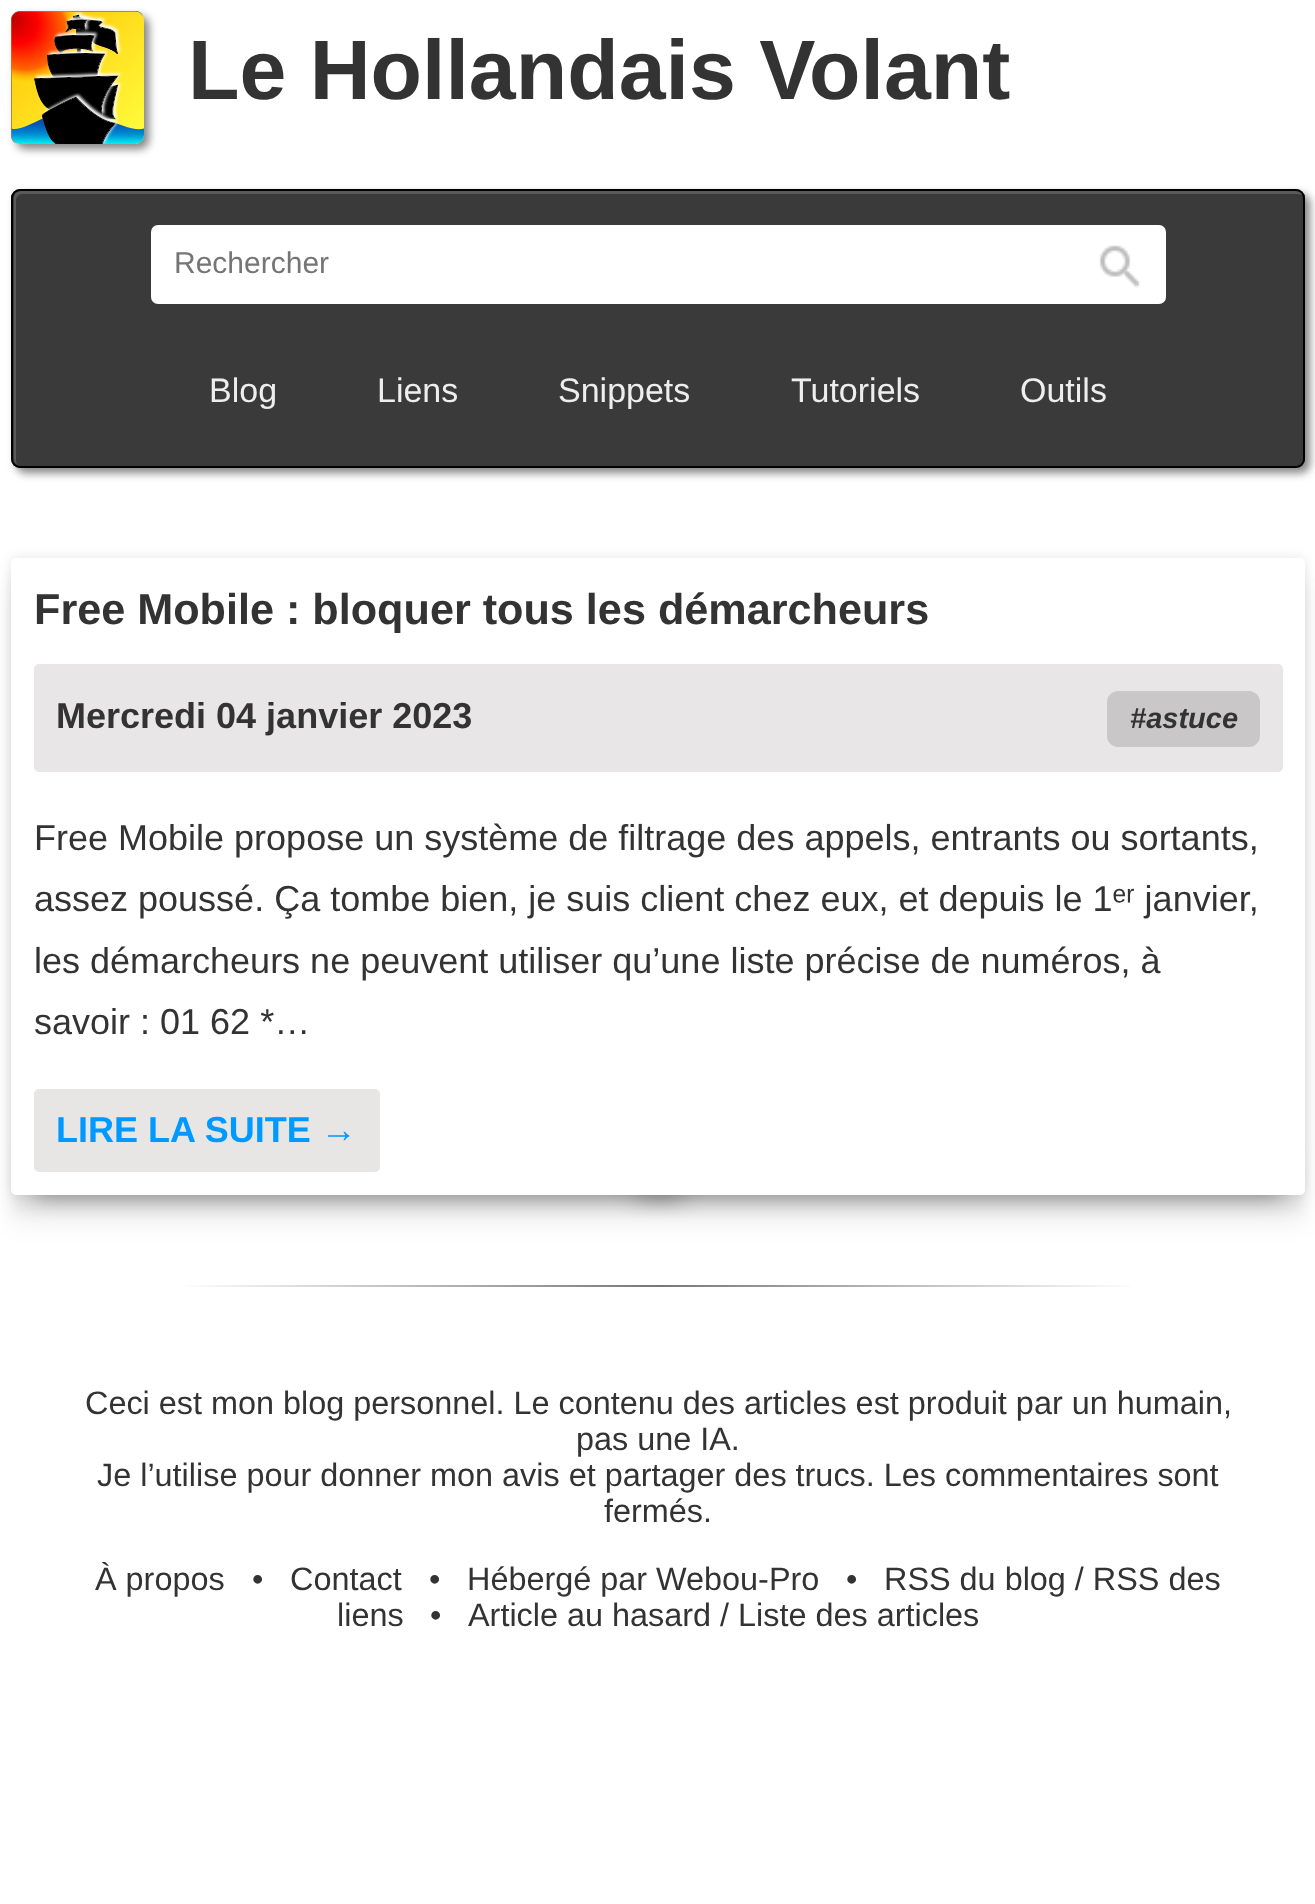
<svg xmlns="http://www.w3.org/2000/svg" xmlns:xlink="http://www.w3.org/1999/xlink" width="1315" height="1904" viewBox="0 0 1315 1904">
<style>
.cls-1{font:bold 84.25px Liberation Sans;fill:#333333}
.cls-2{font:30px Liberation Sans;fill:#757575}
.cls-3{font:34px Liberation Sans;fill:#eeeeee}
.cls-4{font:bold 43.2px Liberation Sans;fill:#333333}
.cls-5{font:bold 36px Liberation Sans;fill:#333333}
.cls-6{font:italic bold 29px Liberation Sans;fill:#333333}
.cls-7{font:36px Liberation Sans;fill:#333333}
.cls-8{font:bold 36px Liberation Sans;fill:#0099ff}
.cls-9{font:32.4px Liberation Sans;fill:#333333}
</style>
<defs>
<linearGradient id="g1" gradientUnits="userSpaceOnUse" x1="56" y1="1409" x2="1260" y2="1409"><stop offset="0.1" stop-color="#ffffff"/><stop offset="0.5" stop-color="#777777"/><stop offset="0.9" stop-color="#ffffff"/></linearGradient>
</defs>
<rect width="100%" height="100%" fill="#ffffff"/>
<rect fill="#777777" fill-opacity="0.9" filter="blur(4.5px)" x="16" y="16" width="133" height="133" rx="9"/>
<path fill="#5a5a5a" d="M22 14H137C139 14 142 15 143 16C142 13 139 11 135 11H20C15 11 11 15 11 20V135C11 139 13 142 16 143C15 142 14 139 14 137V22C14 18 18 14 22 14Z"/>
<image xlink:href="image0.png" x="11" y="11" width="133" height="133"/>
<rect fill="#777777" fill-opacity="0.9" filter="blur(4.5px)" x="16" y="194" width="1294" height="279" rx="9"/>
<rect fill="#3a3a3a" x="11" y="189" width="1294" height="279" rx="9"/>
<path fill="#5a5a5a" d="M22 194H1298C1300 194 1301 195 1303 195C1302 193 1299 191 1296 191H21C17 191 14 194 14 198V459C14 461 15 463 17 465L16 461V200C16 197 19 194 22 194Z"/>
<rect fill="none" stroke="#000000" stroke-width="2" x="12" y="190" width="1292" height="277" rx="8"/>
<rect fill="#ffffff" x="151" y="225" width="1015" height="79" rx="7"/>
<image xlink:href="image1.png" x="1099" y="245" width="42" height="43"/>
<rect fill="#000000" fill-opacity="0.06" filter="blur(11px)" x="11" y="587" width="1294" height="637" rx="5"/>
<rect fill="#000000" fill-opacity="0.05" filter="blur(6px)" x="11" y="574" width="1294" height="637" rx="5"/>
<rect fill="#000000" fill-opacity="0.1" filter="blur(6px)" x="11" y="558" width="1294" height="637" rx="5"/>
<rect fill="#777777" filter="blur(11.5px)" x="34" y="1150" width="648" height="45"/>
<rect fill="#777777" filter="blur(11.5px)" x="637" y="1150" width="646" height="45"/>
<rect fill="#ffffff" x="11" y="558" width="1294" height="637" rx="5"/>
<rect fill="#e8e6e6" x="34" y="664" width="1249" height="108" rx="5"/>
<path fill="#c9c7c7" d="M1118 691H1145V747H1118C1112 747 1107 742 1107 736V702C1107 696 1112 691 1118 691Z"/>
<path fill="#c9c7c7" d="M1145 691H1249C1255 691 1260 696 1260 702V736C1260 742 1255 747 1249 747H1145Z"/>
<rect fill="#e8e5e5" x="34" y="1089" width="346" height="83" rx="5"/>
<rect fill="url(#g1)" x="185" y="1285" width="946" height="2"/>
<text class="cls-1" x="188" y="99">Le Hollandais Volant</text>
<text class="cls-2" x="174" y="273">Rechercher</text>
<text class="cls-3" x="209" y="402">Blog</text>
<text class="cls-3" x="377" y="402">Liens</text>
<text class="cls-3" x="558" y="402">Snippets</text>
<text class="cls-3" x="791" y="402">Tutoriels</text>
<text class="cls-3" x="1020" y="402">Outils</text>
<text class="cls-4" x="34" y="624">Free Mobile : bloquer tous les démarcheurs</text>
<text class="cls-5" x="56" y="728">Mercredi 04 janvier 2023</text>
<text class="cls-6" x="1130" y="728">#astuce</text>
<text class="cls-7"><tspan x="34" y="850">Free Mobile propose un système de filtrage des appels, entrants ou sortants,</tspan><tspan x="34" y="911">assez poussé. Ça tombe bien, je suis client chez eux, et depuis le 1ᵉʳ janvier,</tspan><tspan x="34" y="973">les démarcheurs ne peuvent utiliser qu’une liste précise de numéros, à</tspan><tspan x="34" y="1034">savoir : 01 62 *…</tspan></text>
<text class="cls-8" x="56" y="1142">LIRE LA SUITE →</text>
<text class="cls-9" x="85" y="1414">Ceci est mon blog personnel. Le contenu des articles est produit par un humain,</text>
<text class="cls-9" x="576" y="1450">pas une IA.</text>
<text class="cls-9" x="97" y="1486">Je l’utilise pour donner mon avis et partager des trucs. Les commentaires sont</text>
<text class="cls-9" x="604" y="1522">fermés.</text>
<text class="cls-9" x="95" y="1590">À propos</text>
<text class="cls-9" x="252" y="1590">•</text>
<text class="cls-9" x="290" y="1590">Contact</text>
<text class="cls-9" x="429" y="1590">•</text>
<text class="cls-9" x="467" y="1590">Hébergé par Webou-Pro</text>
<text class="cls-9" x="846" y="1590">•</text>
<text class="cls-9" x="884" y="1590">RSS du blog / RSS des</text>
<text class="cls-9" x="337" y="1626">liens</text>
<text class="cls-9" x="430" y="1626">•</text>
<text class="cls-9" x="468" y="1626">Article au hasard / Liste des articles</text>
</svg>
